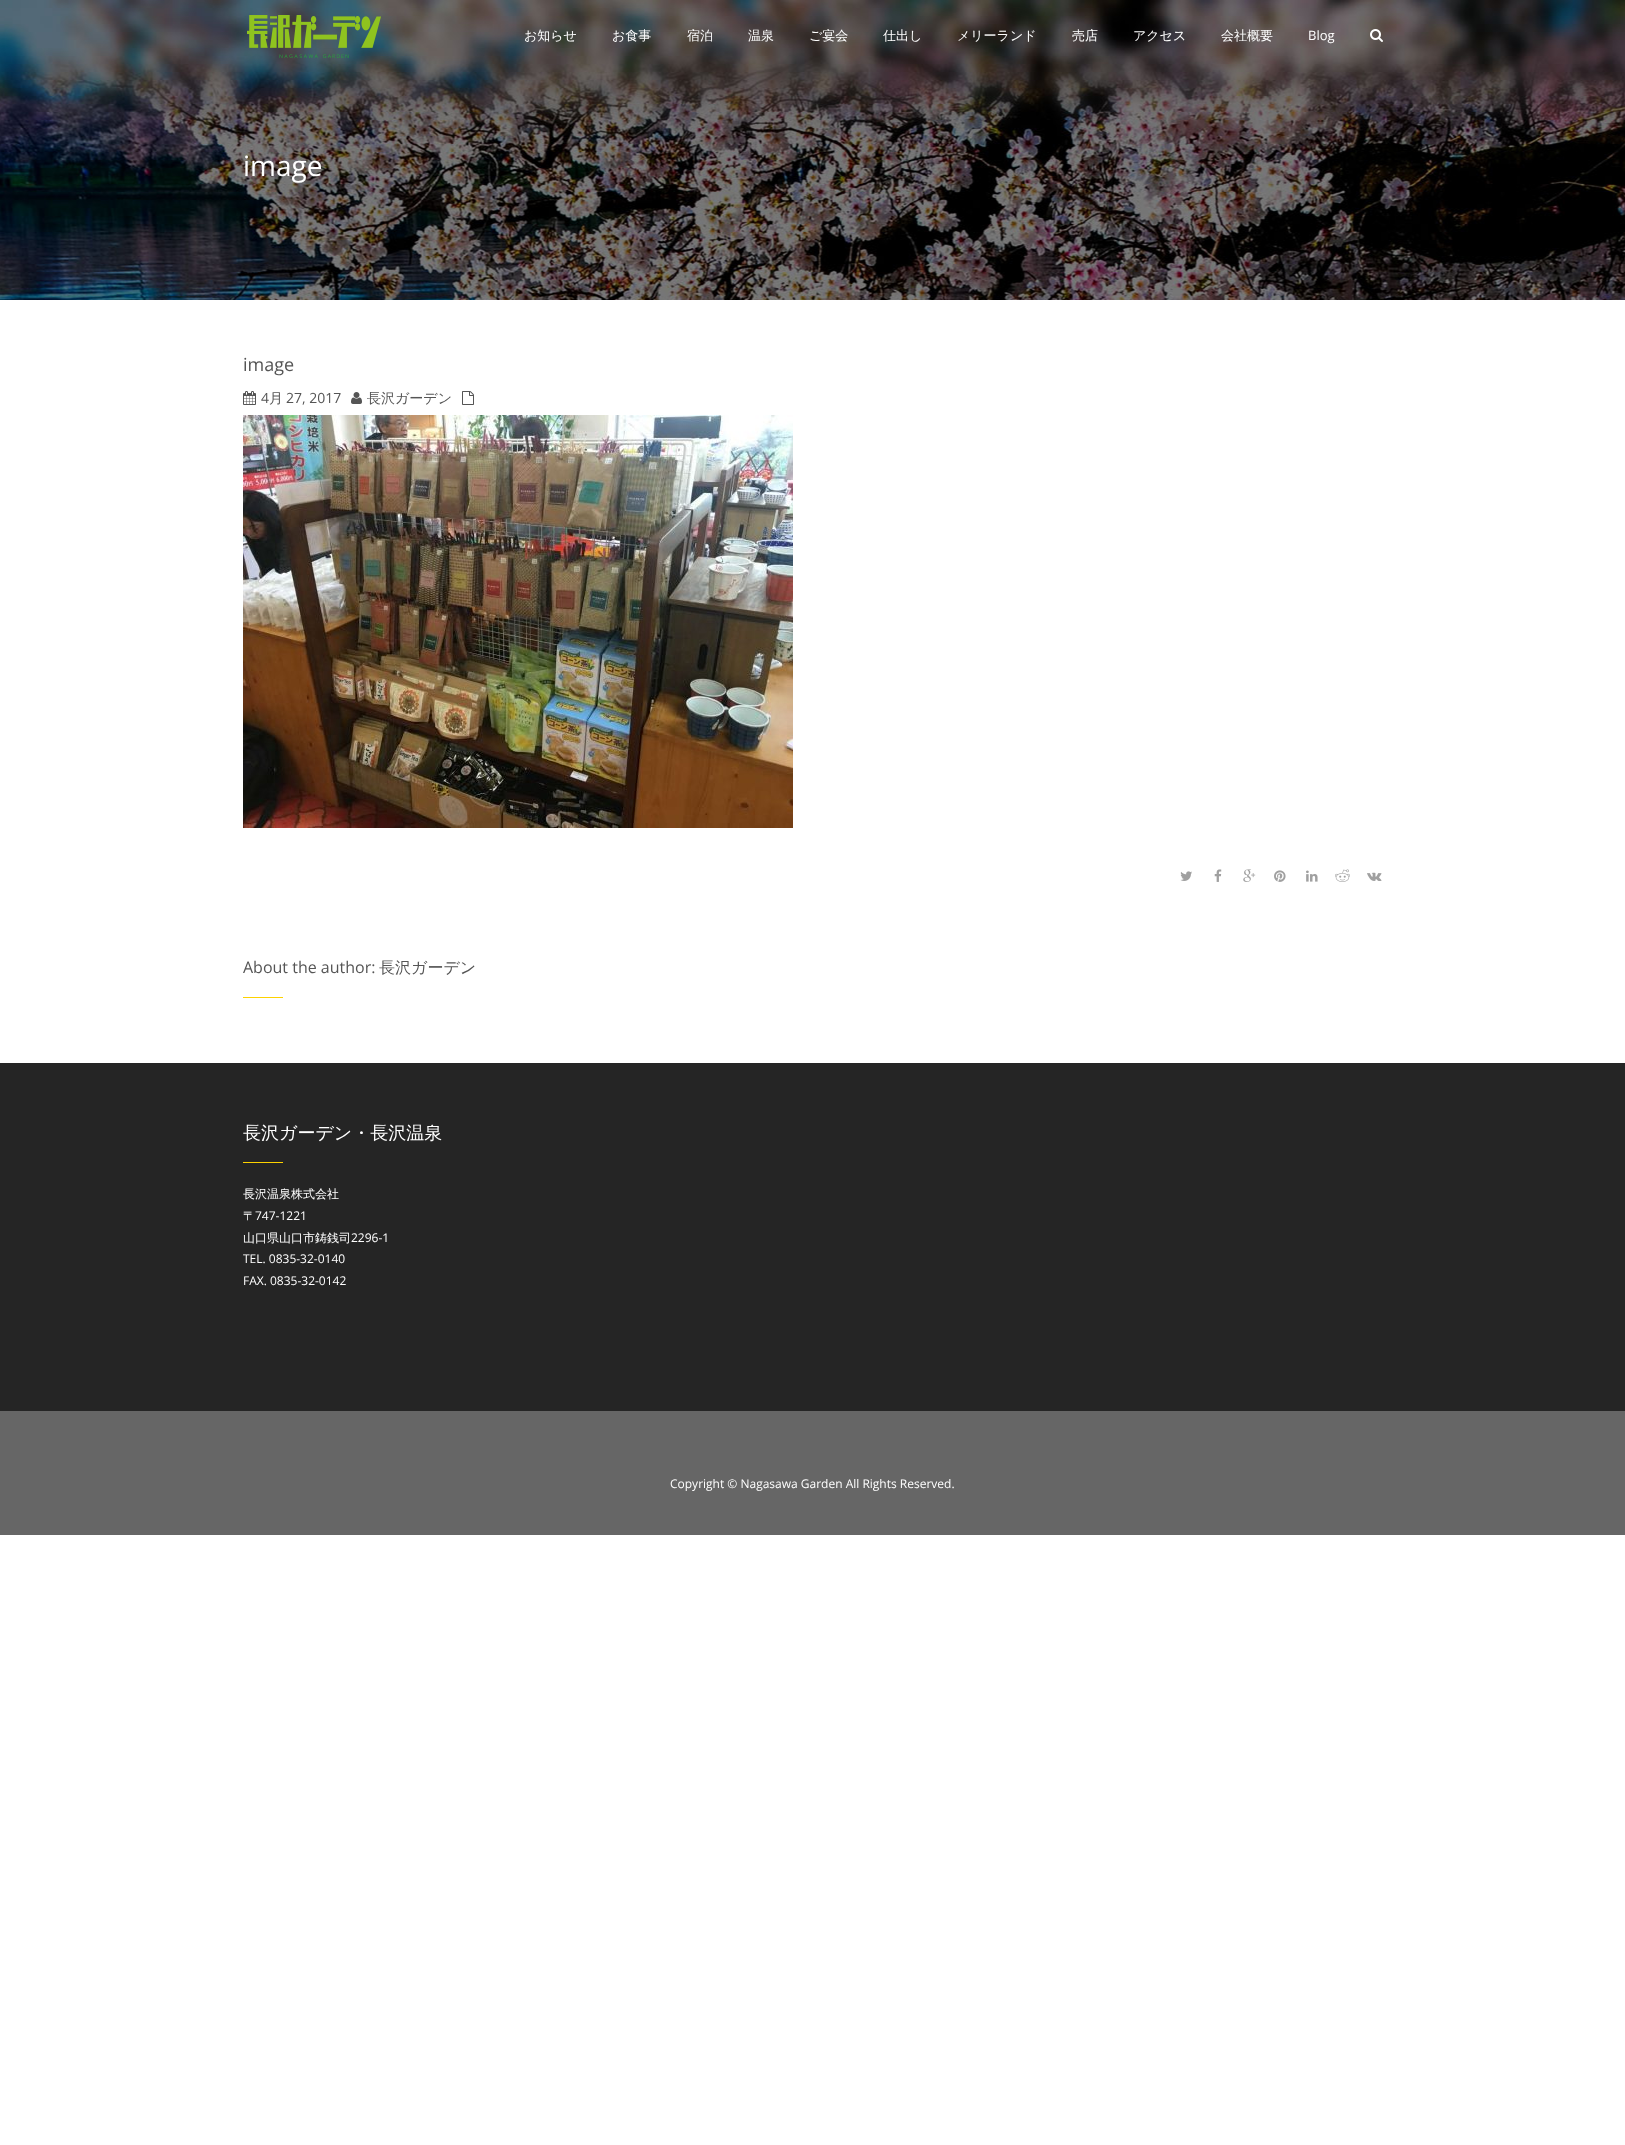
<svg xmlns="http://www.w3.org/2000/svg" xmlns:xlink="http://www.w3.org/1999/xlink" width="1625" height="2145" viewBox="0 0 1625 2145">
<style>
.cls-1{font:500 13px WenQuanYi Zen Hei;fill:#ffffff}
.cls-2{font:13px Open Sans;fill:#ffffff}
.cls-3{font:28px Open Sans;fill:#ffffff}
.cls-4{font:18px Open Sans;fill:#555555}
.cls-5{font:14px Open Sans;fill:#555555}
.cls-6{font:500 14px WenQuanYi Zen Hei;fill:#555555}
.cls-7{font:16px Open Sans;fill:#555555}
.cls-8{font:500 16px WenQuanYi Zen Hei;fill:#555555}
.cls-9{font:500 18px WenQuanYi Zen Hei;fill:#ffffff}
.cls-10{font:500 12px WenQuanYi Zen Hei;fill:#ffffff}
.cls-11{font:12px Open Sans;fill:#ffffff}
</style>
<rect width="100%" height="100%" fill="#ffffff"/>
<image xlink:href="image2.png" x="0" y="0" width="1625" height="300"/>
<image xlink:href="image0.png" x="247" y="15" width="134" height="43"/>
<image xlink:href="image1.png" x="1370" y="29" width="13" height="13"/>
<image xlink:href="image3.png" x="243" y="391" width="13" height="14"/>
<image xlink:href="image4.png" x="351" y="392" width="11" height="12"/>
<image xlink:href="image5.png" x="462" y="391" width="12" height="14"/>
<image xlink:href="image6.png" x="243" y="415" width="550" height="413"/>
<image xlink:href="image7.png" x="1180" y="871" width="12" height="10"/>
<image xlink:href="image8.png" x="1214" y="869" width="8" height="13"/>
<image xlink:href="image9.png" x="1243" y="869" width="13" height="13"/>
<image xlink:href="image10.png" x="1274" y="870" width="12" height="12"/>
<image xlink:href="image11.png" x="1306" y="870" width="12" height="12"/>
<image xlink:href="image12.png" x="1335" y="869" width="15" height="13"/>
<image xlink:href="image13.png" x="1367" y="872" width="15" height="9"/>
<rect fill="#fdd200" x="243" y="997" width="40" height="1"/>
<rect fill="#252525" x="0" y="1063" width="1625" height="348"/>
<rect fill="#fdd200" x="243" y="1162" width="40" height="1"/>
<rect fill="#666666" x="0" y="1411" width="1625" height="124"/>
<text class="cls-1" x="524" y="40">お知らせ</text>
<text class="cls-1" x="612" y="40">お食事</text>
<text class="cls-1" x="687" y="40">宿泊</text>
<text class="cls-1" x="748" y="40">温泉</text>
<text class="cls-1" x="809" y="40">ご宴会</text>
<text class="cls-1" x="883" y="40">仕出し</text>
<text class="cls-1" x="957" y="40">メリーランド</text>
<text class="cls-1" x="1072" y="40">売店</text>
<text class="cls-1" x="1133" y="40">アクセス</text>
<text class="cls-1" x="1221" y="40">会社概要</text>
<text class="cls-2" x="1308" y="40">Blog</text>
<text class="cls-3" x="243" y="176">image</text>
<text class="cls-4" x="243" y="371">image</text>
<text class="cls-5" x="261" y="403">4</text>
<text class="cls-6" x="269" y="403">月</text>
<text class="cls-5" x="286" y="403">27, 2017</text>
<text class="cls-6" x="367" y="403">長沢ガーデン</text>
<text class="cls-7" x="243" y="973">About the author:</text>
<text class="cls-8" x="379" y="973">長沢ガーデン</text>
<text class="cls-9" x="243" y="1139">長沢ガーデン・長沢温泉</text>
<text class="cls-10"><tspan x="243" y="1198">長沢温泉株式会社</tspan><tspan x="243" y="1220">〒</tspan></text>
<text class="cls-11" x="255" y="1220">747-1221</text>
<text class="cls-10" x="243" y="1242">山口県山口市鋳銭司</text>
<text class="cls-11" x="351" y="1242">2296-1</text>
<text class="cls-11"><tspan x="243" y="1263">TEL. 0835-32-0140</tspan><tspan x="243" y="1285">FAX. 0835-32-0142</tspan></text>
<text class="cls-11" x="670" y="1488">Copyright © Nagasawa Garden All Rights Reserved.</text>
</svg>
